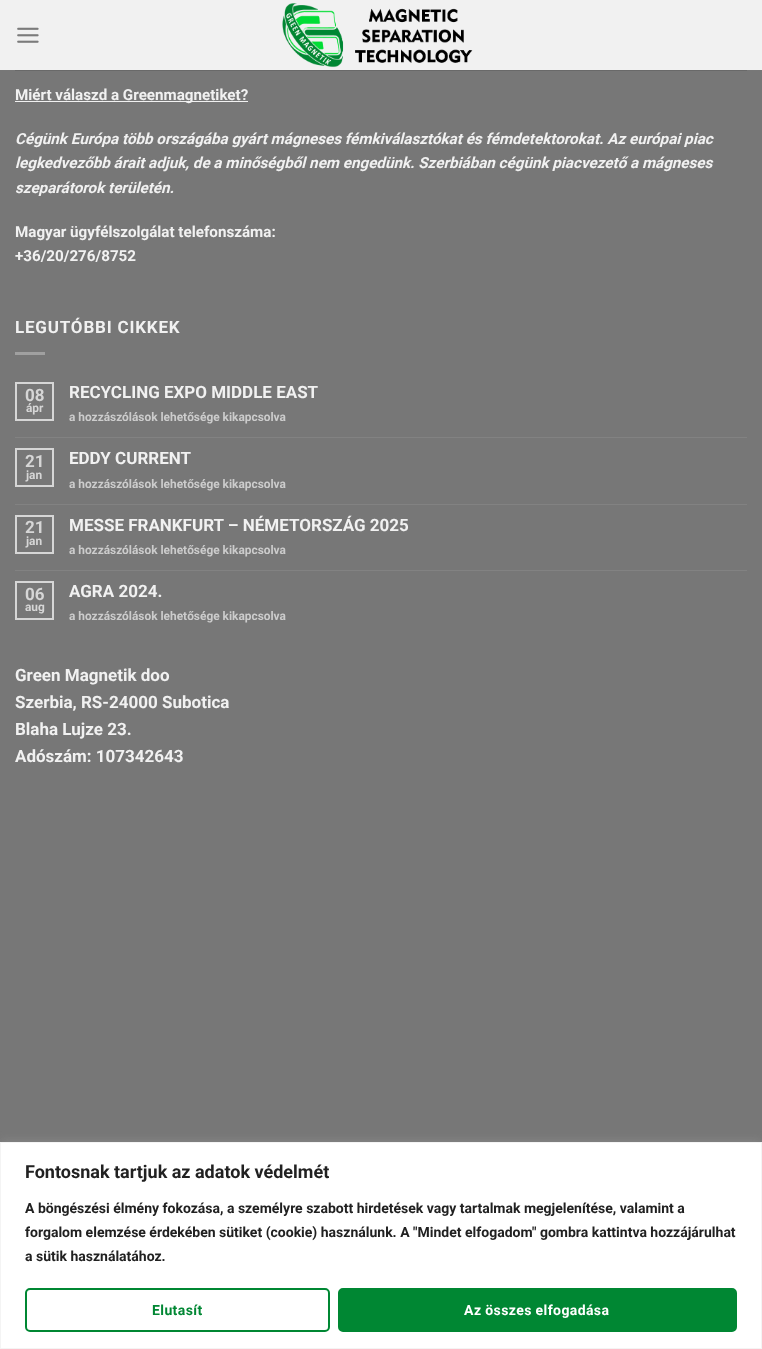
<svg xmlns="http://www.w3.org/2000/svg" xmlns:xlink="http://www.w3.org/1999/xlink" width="762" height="1349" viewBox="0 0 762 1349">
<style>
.cls-1{font:bold 15.2px Roboto;fill:#f1f1f1}
.cls-2{font:italic bold 15.2px Roboto;fill:#f1f1f1}
.cls-3{font:bold 17px Roboto;letter-spacing:0.8px;fill:#f1f1f1}
.cls-4{font:bold 17px Roboto;fill:#d6d6d6}
.cls-5{font:bold 11.9px Roboto;fill:#d6d6d6}
.cls-6{font:bold 17px Roboto;fill:#f1f1f1}
.cls-7{font:bold 11.9px Roboto;fill:#cccccc}
.cls-8{font:bold 18px Roboto;fill:#212121}
.cls-9{font:bold 14px Roboto;fill:#212121}
.cls-10{font:bold 14px Roboto;letter-spacing:0.4px;fill:#008733}
.cls-11{font:bold 14px Roboto;letter-spacing:0.4px;fill:#ffffff}
</style>
<rect width="100%" height="100%" fill="#777777"/>
<rect fill="#f1f1f1" x="0" y="0" width="762" height="70"/>
<image xlink:href="image0.png" x="17" y="27" width="22" height="16"/>
<image xlink:href="image1.png" x="282" y="3" width="191" height="65"/>
<rect fill="#696969" x="15" y="70" width="732" height="1"/>
<rect fill="#f1f1f1" x="15" y="101" width="233" height="1"/>
<rect fill="#a0a0a0" x="15" y="352" width="30" height="3"/>
<rect fill="none" stroke="#d6d6d6" stroke-width="2" x="16" y="383" width="37" height="37"/>
<rect fill="#828282" x="15" y="437" width="732" height="1"/>
<rect fill="none" stroke="#d6d6d6" stroke-width="2" x="16" y="449" width="37" height="37"/>
<rect fill="#828282" x="15" y="504" width="732" height="1"/>
<rect fill="none" stroke="#d6d6d6" stroke-width="2" x="16" y="516" width="37" height="37"/>
<rect fill="#828282" x="15" y="570" width="732" height="1"/>
<rect fill="none" stroke="#d6d6d6" stroke-width="2" x="16" y="582" width="37" height="37"/>
<rect fill="#acabab" fill-opacity="0.3" filter="blur(5px)" x="0" y="1141" width="762" height="207"/>
<rect fill="#ffffff" stroke="#f4f4f4" x="0.5" y="1142.5" width="761" height="206"/>
<rect fill="none" stroke="#008733" stroke-width="2" x="26" y="1289" width="303" height="42" rx="4"/>
<rect fill="#008733" stroke="#008733" stroke-width="2" x="339" y="1289" width="397" height="42" rx="4"/>
<text class="cls-1" x="15" y="100">Miért válaszd a Greenmagnetiket?</text>
<text class="cls-2"><tspan x="15" y="144">Cégünk Európa több országába gyárt mágneses fémkiválasztókat és fémdetektorokat. Az európai piac</tspan><tspan x="15" y="168">legkedvezőbb árait adjuk, de a minőségből nem engedünk. Szerbiában cégünk piacvezető a mágneses</tspan><tspan x="15" y="193">szeparátorok területén.</tspan></text>
<text class="cls-1"><tspan x="15" y="237">Magyar ügyfélszolgálat telefonszáma:</tspan><tspan x="15" y="261">+36/20/276/8752</tspan></text>
<text class="cls-3" x="15" y="333">LEGUTÓBBI CIKKEK</text>
<text class="cls-4" x="25" y="401">08</text>
<text class="cls-5" x="26" y="412">ápr</text>
<text class="cls-6" x="69" y="398">RECYCLING EXPO MIDDLE EAST</text>
<text class="cls-7" x="69" y="421">a hozzászólások lehetősége kikapcsolva</text>
<text class="cls-4" x="25" y="467">21</text>
<text class="cls-5" x="26" y="479">jan</text>
<text class="cls-6" x="69" y="464">EDDY CURRENT</text>
<text class="cls-7" x="69" y="488">a hozzászólások lehetősége kikapcsolva</text>
<text class="cls-4" x="25" y="533">21</text>
<text class="cls-5" x="26" y="545">jan</text>
<text class="cls-6" x="69" y="531">MESSE FRANKFURT – NÉMETORSZÁG 2025</text>
<text class="cls-7" x="69" y="554">a hozzászólások lehetősége kikapcsolva</text>
<text class="cls-4" x="25" y="600">06</text>
<text class="cls-5" x="25" y="611">aug</text>
<text class="cls-6" x="69" y="597">AGRA 2024.</text>
<text class="cls-7" x="69" y="620">a hozzászólások lehetősége kikapcsolva</text>
<text class="cls-6"><tspan x="15" y="681">Green Magnetik doo</tspan><tspan x="15" y="708">Szerbia, RS-24000 Subotica</tspan><tspan x="15" y="735">Blaha Lujze 23.</tspan><tspan x="15" y="762">Adószám: 107342643</tspan></text>
<text class="cls-8" x="25" y="1178">Fontosnak tartjuk az adatok védelmét</text>
<text class="cls-9"><tspan x="25" y="1213">A böngészési élmény fokozása, a személyre szabott hirdetések vagy tartalmak megjelenítése, valamint a</tspan><tspan x="25" y="1237">forgalom elemzése érdekében sütiket (cookie) használunk. A "Mindet elfogadom" gombra kattintva hozzájárulhat</tspan><tspan x="25" y="1261">a sütik használatához.</tspan></text>
<text class="cls-10" x="152" y="1315">Elutasít</text>
<text class="cls-11" x="464" y="1315">Az összes elfogadása</text>
</svg>
